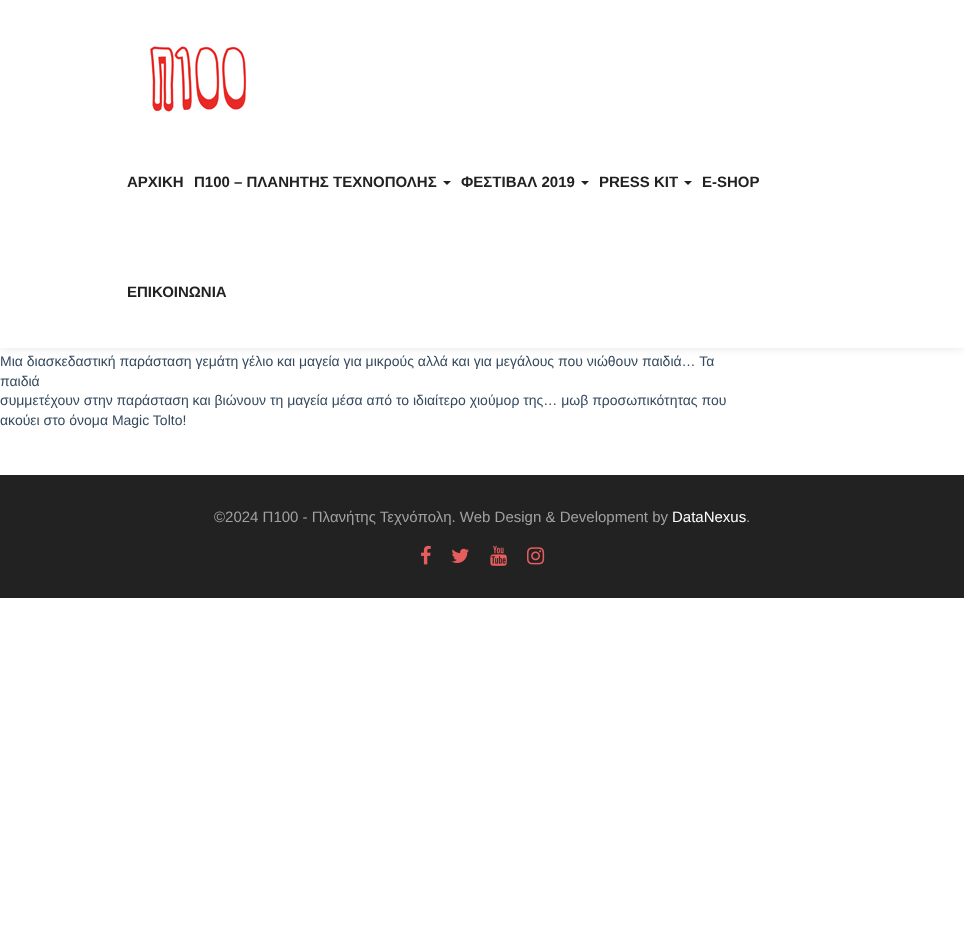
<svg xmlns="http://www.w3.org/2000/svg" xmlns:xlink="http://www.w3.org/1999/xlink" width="964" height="930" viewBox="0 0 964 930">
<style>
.cls-1{font:bold 15px Liberation Sans;fill:#222222}
.cls-2{font:14px Liberation Sans;fill:#34495e}
.cls-3{font:15px Liberation Sans;fill:#a1a1a1}
.cls-4{font:15px Liberation Sans;fill:#ffffff}
</style>
<rect width="100%" height="100%" fill="#ffffff"/>
<rect fill="#000000" fill-opacity="0.1" filter="blur(5px)" x="0" y="0" width="964" height="348"/>
<rect fill="#ffffff" x="0" y="0" width="964" height="348"/>
<image xlink:href="image0.png" x="150" y="46" width="97" height="66"/>
<path fill="#222222" d="M443 181H451L447 185Z"/>
<path fill="#222222" d="M581 181H589L585 185Z"/>
<path fill="#222222" d="M684 181H692L688 185Z"/>
<rect fill="#222222" x="0" y="475" width="964" height="123"/>
<image xlink:href="image1.png" x="421" y="545" width="10" height="20"/>
<image xlink:href="image2.png" x="451" y="548" width="18" height="15"/>
<image xlink:href="image3.png" x="490" y="545" width="17" height="21"/>
<image xlink:href="image4.png" x="527" y="547" width="18" height="18"/>
<text class="cls-1" x="127" y="187">ΑΡΧΙΚΗ</text>
<text class="cls-1" x="194" y="187">Π100 – ΠΛΑΝΗΤΗΣ ΤΕΧΝΟΠΟΛΗΣ</text>
<text class="cls-1" x="461" y="187">ΦΕΣΤΙΒΑΛ 2019</text>
<text class="cls-1" x="599" y="187">PRESS KIT</text>
<text class="cls-1" x="702" y="187">E-SHOP</text>
<text class="cls-1" x="127" y="297">ΕΠΙΚΟΙΝΩΝΙΑ</text>
<text class="cls-2"><tspan x="0" y="366">Μια διασκεδαστική παράσταση γεμάτη γέλιο και μαγεία για μικρούς αλλά και για μεγάλους που νιώθουν παιδιά… Τα</tspan><tspan x="0" y="386">παιδιά</tspan><tspan x="0" y="405">συμμετέχουν στην παράσταση και βιώνουν τη μαγεία μέσα από το ιδιαίτερο χιούμορ της… μωβ προσωπικότητας που</tspan><tspan x="0" y="425">ακούει στο όνομα Magic Tolto!</tspan></text>
<text class="cls-3" x="214" y="522">©2024 Π100 - Πλανήτης Τεχνόπολη. Web Design &amp; Development by</text>
<text class="cls-4" x="672" y="522">DataNexus</text>
<text class="cls-3" x="746" y="522">.</text>
</svg>
